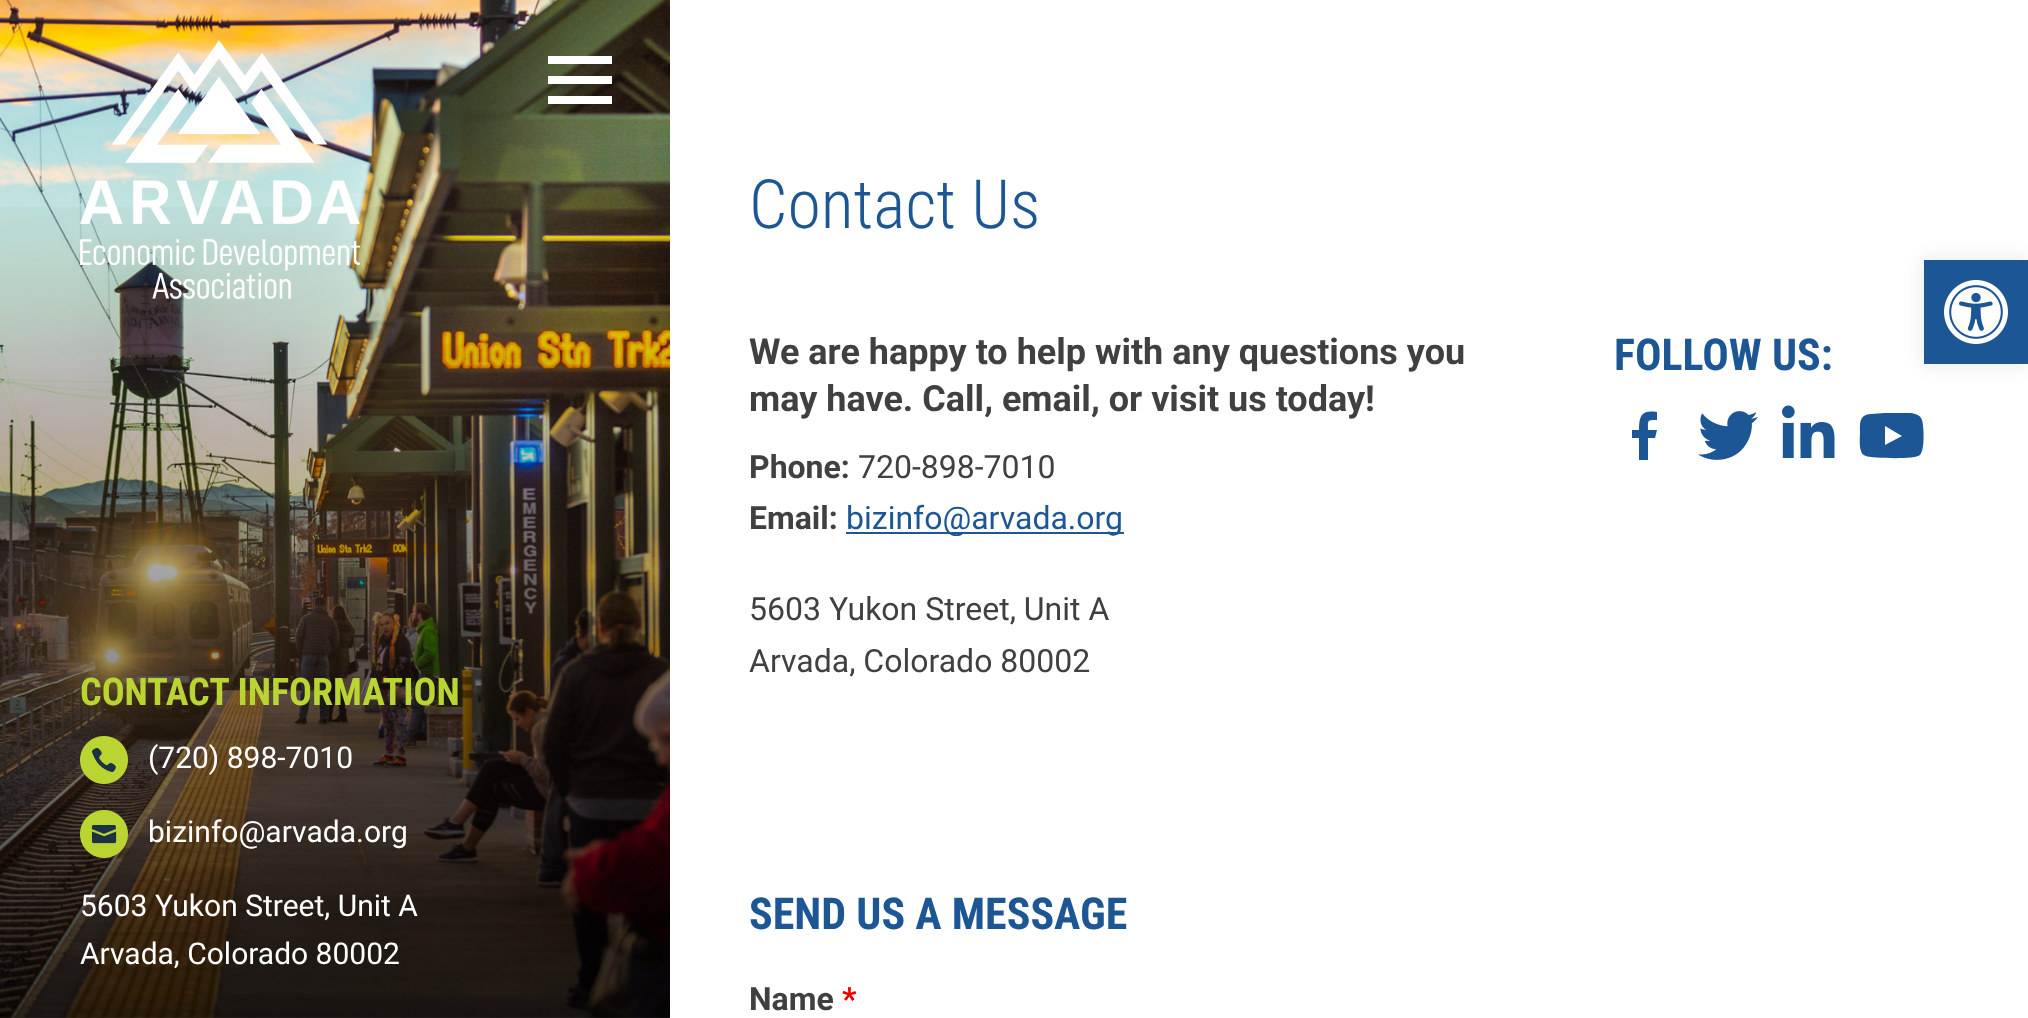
<svg xmlns="http://www.w3.org/2000/svg" xmlns:xlink="http://www.w3.org/1999/xlink" width="2028" height="1018" viewBox="0 0 2028 1018">
<style>
.cls-1{font:bold 38px Roboto Condensed;fill:#bad532}
.cls-2{font:30px Roboto;fill:#ffffff}
.cls-3{font:300 68px Roboto Condensed;fill:#1c5694}
.cls-4{font:bold 36px Roboto;fill:#404040}
.cls-5{font:bold 32px Roboto;fill:#404040}
.cls-6{font:32px Roboto;fill:#404040}
.cls-7{font:32px Roboto;fill:#1c5694}
.cls-8{font:bold 44px Roboto Condensed;fill:#1c5694}
.cls-9{font:bold 32px Roboto;fill:#e80000}
</style>
<defs>
<linearGradient id="g1" gradientUnits="userSpaceOnUse" x1="335" y1="0" x2="335" y2="1018"><stop offset="0" stop-color="#000000" stop-opacity="0.7"/><stop offset="0" stop-color="#000000" stop-opacity="0"/><stop offset="0.18" stop-color="#000000" stop-opacity="0"/><stop offset="1" stop-color="#000000" stop-opacity="0.76"/></linearGradient>
</defs>
<rect width="100%" height="100%" fill="#ffffff"/>
<image xlink:href="image0.png" x="0" y="0" width="670" height="1018"/>
<rect fill="url(#g1)" x="0" y="207" width="670" height="811"/>
<image xlink:href="image1.png" x="80" y="40" width="280" height="259"/>
<rect fill="#ffffff" x="548" y="76" width="64" height="8"/>
<rect fill="#ffffff" x="548" y="96" width="64" height="8"/>
<rect fill="#ffffff" x="548" y="56" width="64" height="8"/>
<image xlink:href="image2.png" x="80" y="736" width="48" height="48"/>
<image xlink:href="image3.png" x="80" y="810" width="48" height="48"/>
<rect fill="#1c5694" x="846" y="532" width="278" height="2"/>
<path fill="#1c5694" d="M1639 460H1648V438H1655L1657 430H1648C1648 420 1647 420 1657 420V412C1642 410 1639 415 1639 430H1632V438H1639Z"/>
<image xlink:href="image4.png" x="1698" y="411" width="60" height="49"/>
<image xlink:href="image5.png" x="1782" y="405" width="53" height="53"/>
<path fill="#1c5694" d="M1922 420C1924 427 1925 450 1920 455C1915 460 1870 458 1866 456C1863 455 1862 454 1861 451C1859 445 1860 437 1860 431C1860 421 1860 415 1871 414L1885 413H1905C1911 413 1920 413 1922 420ZM1885 445L1902 436L1885 426Z"/>
<rect fill="#000000" fill-opacity="0.1" filter="blur(10px)" x="1924" y="260" width="104" height="104"/>
<rect fill="#1c5694" x="1924" y="260" width="104" height="104"/>
<image xlink:href="image6.png" x="1944" y="280" width="64" height="64"/>
<text class="cls-1" x="80" y="705">CONTACT INFORMATION</text>
<text class="cls-2" x="148" y="768">(720) 898-7010</text>
<text class="cls-2" x="148" y="842">bizinfo@arvada.org</text>
<text class="cls-2"><tspan x="80" y="916">5603 Yukon Street, Unit A</tspan><tspan x="80" y="964">Arvada, Colorado 80002</tspan></text>
<text class="cls-3" x="749" y="228">Contact Us</text>
<text class="cls-4"><tspan x="749" y="364">We are happy to help with any questions you</tspan><tspan x="749" y="411">may have. Call, email, or visit us today!</tspan></text>
<text class="cls-5" x="749" y="478">Phone:</text>
<text class="cls-6" x="858" y="478">720-898-7010</text>
<text class="cls-5" x="749" y="529">Email:</text>
<text class="cls-7" x="846" y="529">bizinfo@arvada.org</text>
<text class="cls-6"><tspan x="749" y="620">5603 Yukon Street, Unit A</tspan><tspan x="749" y="672">Arvada, Colorado 80002</tspan></text>
<text class="cls-8" x="1614" y="370">FOLLOW US:</text>
<text class="cls-8" x="749" y="929">SEND US A MESSAGE</text>
<text class="cls-5" x="749" y="1010">Name</text>
<text class="cls-9" x="842" y="1010">*</text>
</svg>
